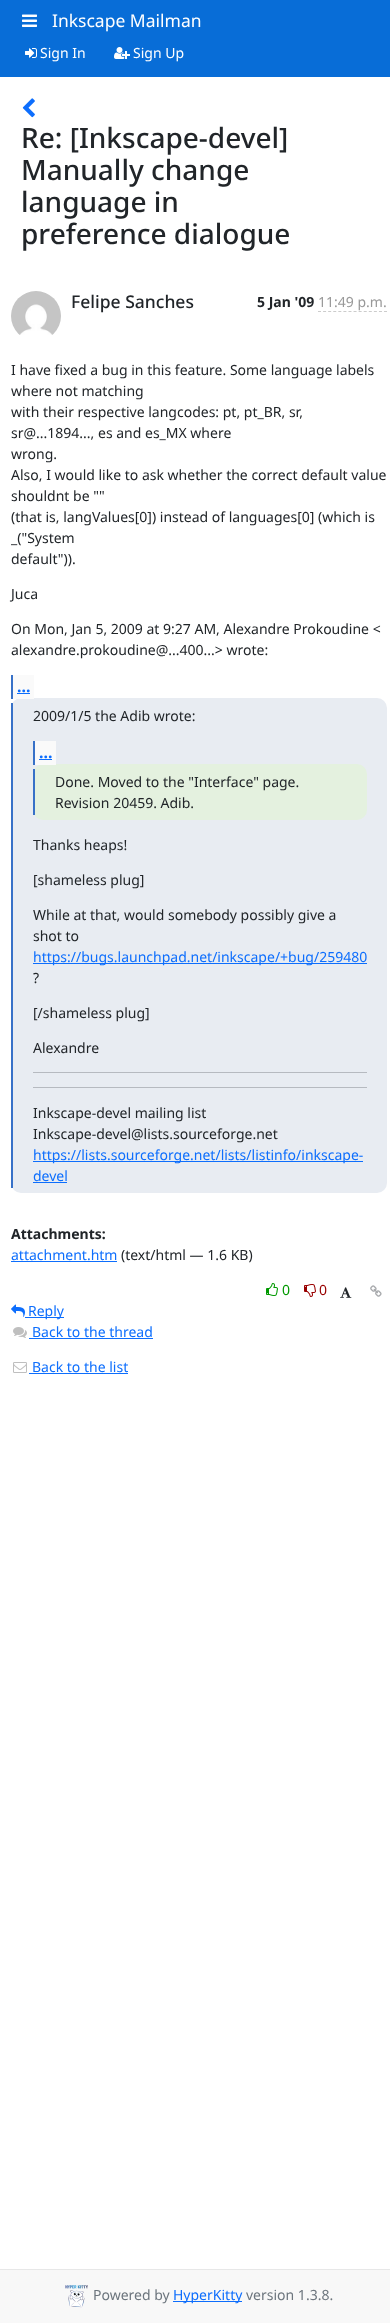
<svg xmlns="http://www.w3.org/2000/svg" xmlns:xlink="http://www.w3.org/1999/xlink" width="390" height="2323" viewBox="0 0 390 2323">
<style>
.cls-1{font:17.5px Noto Sans;fill:#ffffff}
.cls-2{font:14px Noto Sans;fill:#ffffff}
.cls-3{font:500 28px Noto Sans;fill:#212529}
.cls-4{font:500 17.5px Noto Sans;fill:#212529}
.cls-5{font:bold 14px Noto Sans;fill:#212529}
.cls-6{font:14px Noto Sans;fill:#999999}
.cls-7{font:14px Noto Sans;fill:#212529}
.cls-8{font:bold 16px Noto Sans;fill:#0d6efd}
.cls-9{font:14px Noto Sans;fill:#0d6efd}
.cls-10{font:14px Noto Sans;fill:#009900}
.cls-11{font:14px Noto Sans;fill:#990000}
.cls-12{font:14px Noto Sans;fill:#6c757d}
</style>
<rect width="100%" height="100%" fill="#ffffff"/>
<rect fill="#086dd7" x="0" y="0" width="390" height="77"/>
<image xlink:href="image0.png" x="22" y="14" width="15" height="13"/>
<image xlink:href="image1.png" x="25" y="48" width="12" height="10"/>
<image xlink:href="image2.png" x="114" y="47" width="16" height="12"/>
<image xlink:href="image3.png" x="22" y="98" width="13" height="20"/>
<image xlink:href="image4.png" x="11" y="291" width="50" height="44"/>
<path fill="none" stroke="#cccccc" stroke-dasharray="3 2.08" d="M318 311.5H387"/>
<rect fill="#e8ecf2" x="11" y="698" width="376" height="495" rx="10"/>
<rect fill="#fafafa" x="13" y="675" width="21" height="24"/>
<rect fill="#3771c8" x="11" y="675" width="2" height="24"/>
<rect fill="#0d6efd" x="17" y="693" width="13" height="1"/>
<rect fill="#3771c8" x="11" y="703" width="2" height="485"/>
<rect fill="#e4f1df" x="33" y="764" width="334" height="56" rx="10"/>
<rect fill="#fafafa" x="35" y="741" width="21" height="24"/>
<rect fill="#3771c8" x="33" y="741" width="2" height="24"/>
<rect fill="#0d6efd" x="39" y="759" width="13" height="1"/>
<rect fill="#3771c8" x="33" y="769" width="2" height="46"/>
<rect fill="#0d6efd" x="33" y="963" width="334" height="1"/>
<rect fill="#b6bac0" x="33" y="1072" width="334" height="1"/>
<rect fill="#b6bac0" x="33" y="1087" width="334" height="1"/>
<rect fill="#0d6efd" x="33" y="1161" width="330" height="1"/>
<rect fill="#0d6efd" x="33" y="1182" width="34" height="1"/>
<rect fill="#0d6efd" x="11" y="1261" width="106" height="1"/>
<image xlink:href="image5.png" x="266" y="1283" width="12" height="13"/>
<image xlink:href="image6.png" x="304" y="1284" width="12" height="13"/>
<image xlink:href="image7.png" x="340" y="1287" width="12" height="11"/>
<image xlink:href="image8.png" x="370" y="1285" width="12" height="12"/>
<image xlink:href="image9.png" x="11" y="1304" width="14" height="13"/>
<rect fill="#0d6efd" x="25" y="1317" width="39" height="1"/>
<image xlink:href="image10.png" x="13" y="1327" width="14" height="11"/>
<rect fill="#0d6efd" x="29" y="1338" width="124" height="1"/>
<image xlink:href="image11.png" x="13" y="1362" width="14" height="11"/>
<rect fill="#0d6efd" x="29" y="1373" width="99" height="1"/>
<rect fill="#f8f8f8" x="0" y="2270" width="390" height="53"/>
<rect fill="#e7e7e7" x="0" y="2269" width="390" height="1"/>
<image xlink:href="image12.png" x="65" y="2285" width="23" height="23"/>
<rect fill="#0d6efd" x="173" y="2301" width="69" height="1"/>
<text class="cls-1" x="52" y="27">Inkscape Mailman</text>
<text class="cls-2" x="40" y="58">Sign In</text>
<text class="cls-2" x="133" y="58">Sign Up</text>
<text class="cls-3"><tspan x="21" y="148">Re: [Inkscape-devel]</tspan><tspan x="21" y="180">Manually change</tspan><tspan x="21" y="212">language in</tspan><tspan x="21" y="244">preference dialogue</tspan></text>
<text class="cls-4" x="71" y="308">Felipe Sanches</text>
<text class="cls-5" x="257" y="307">5 Jan '09</text>
<text class="cls-6" x="318" y="307">11:49 p.m.</text>
<text class="cls-7"><tspan x="11" y="375">I have fixed a bug in this feature. Some language labels</tspan><tspan x="11" y="396">where not matching</tspan><tspan x="11" y="417">with their respective langcodes: pt, pt_BR, sr,</tspan><tspan x="11" y="438">sr@...1894..., es and es_MX where</tspan><tspan x="11" y="459">wrong.</tspan><tspan x="11" y="480">Also, I would like to ask whether the correct default value</tspan><tspan x="11" y="501">shouldnt be ""</tspan><tspan x="11" y="522">(that is, langValues[0]) instead of languages[0] (which is</tspan><tspan x="11" y="543">_("System</tspan><tspan x="11" y="564">default")).</tspan></text>
<text class="cls-7" x="11" y="599">Juca</text>
<text class="cls-7"><tspan x="11" y="634">On Mon, Jan 5, 2009 at 9:27 AM, Alexandre Prokoudine &lt;</tspan><tspan x="11" y="655">alexandre.prokoudine@...400...&gt; wrote:</tspan></text>
<text class="cls-8" x="17" y="692">...</text>
<text class="cls-7" x="33" y="721">2009/1/5 the Adib wrote:</text>
<text class="cls-8" x="39" y="758">...</text>
<text class="cls-7"><tspan x="55" y="787">Done. Moved to the "Interface" page.</tspan><tspan x="55" y="808">Revision 20459. Adib.</tspan></text>
<text class="cls-7" x="33" y="850">Thanks heaps!</text>
<text class="cls-7" x="33" y="885">[shameless plug]</text>
<text class="cls-7"><tspan x="33" y="920">While at that, would somebody possibly give a</tspan><tspan x="33" y="941">shot to</tspan></text>
<text class="cls-9" x="33" y="962">https://bugs.launchpad.net/inkscape/+bug/259480</text>
<text class="cls-7" x="33" y="983">?</text>
<text class="cls-7" x="33" y="1018">[/shameless plug]</text>
<text class="cls-7" x="33" y="1053">Alexandre</text>
<text class="cls-7"><tspan x="33" y="1118">Inkscape-devel mailing list</tspan><tspan x="33" y="1139">Inkscape-devel@lists.sourceforge.net</tspan></text>
<text class="cls-9"><tspan x="33" y="1160">https://lists.sourceforge.net/lists/listinfo/inkscape-</tspan><tspan x="33" y="1181">devel</tspan></text>
<text class="cls-5" x="11" y="1239">Attachments:</text>
<text class="cls-9" x="11" y="1260">attachment.htm</text>
<text class="cls-7" x="121" y="1260">(text/html — 1.6 KB)</text>
<text class="cls-10" x="282" y="1295">0</text>
<text class="cls-11" x="319" y="1295">0</text>
<text class="cls-9" x="28" y="1316">Reply</text>
<text class="cls-9" x="32" y="1337">Back to the thread</text>
<text class="cls-9" x="32" y="1372">Back to the list</text>
<text class="cls-12" x="93" y="2300">Powered by</text>
<text class="cls-9" x="173" y="2300">HyperKitty</text>
<text class="cls-12" x="246" y="2300">version 1.3.8.</text>
</svg>
